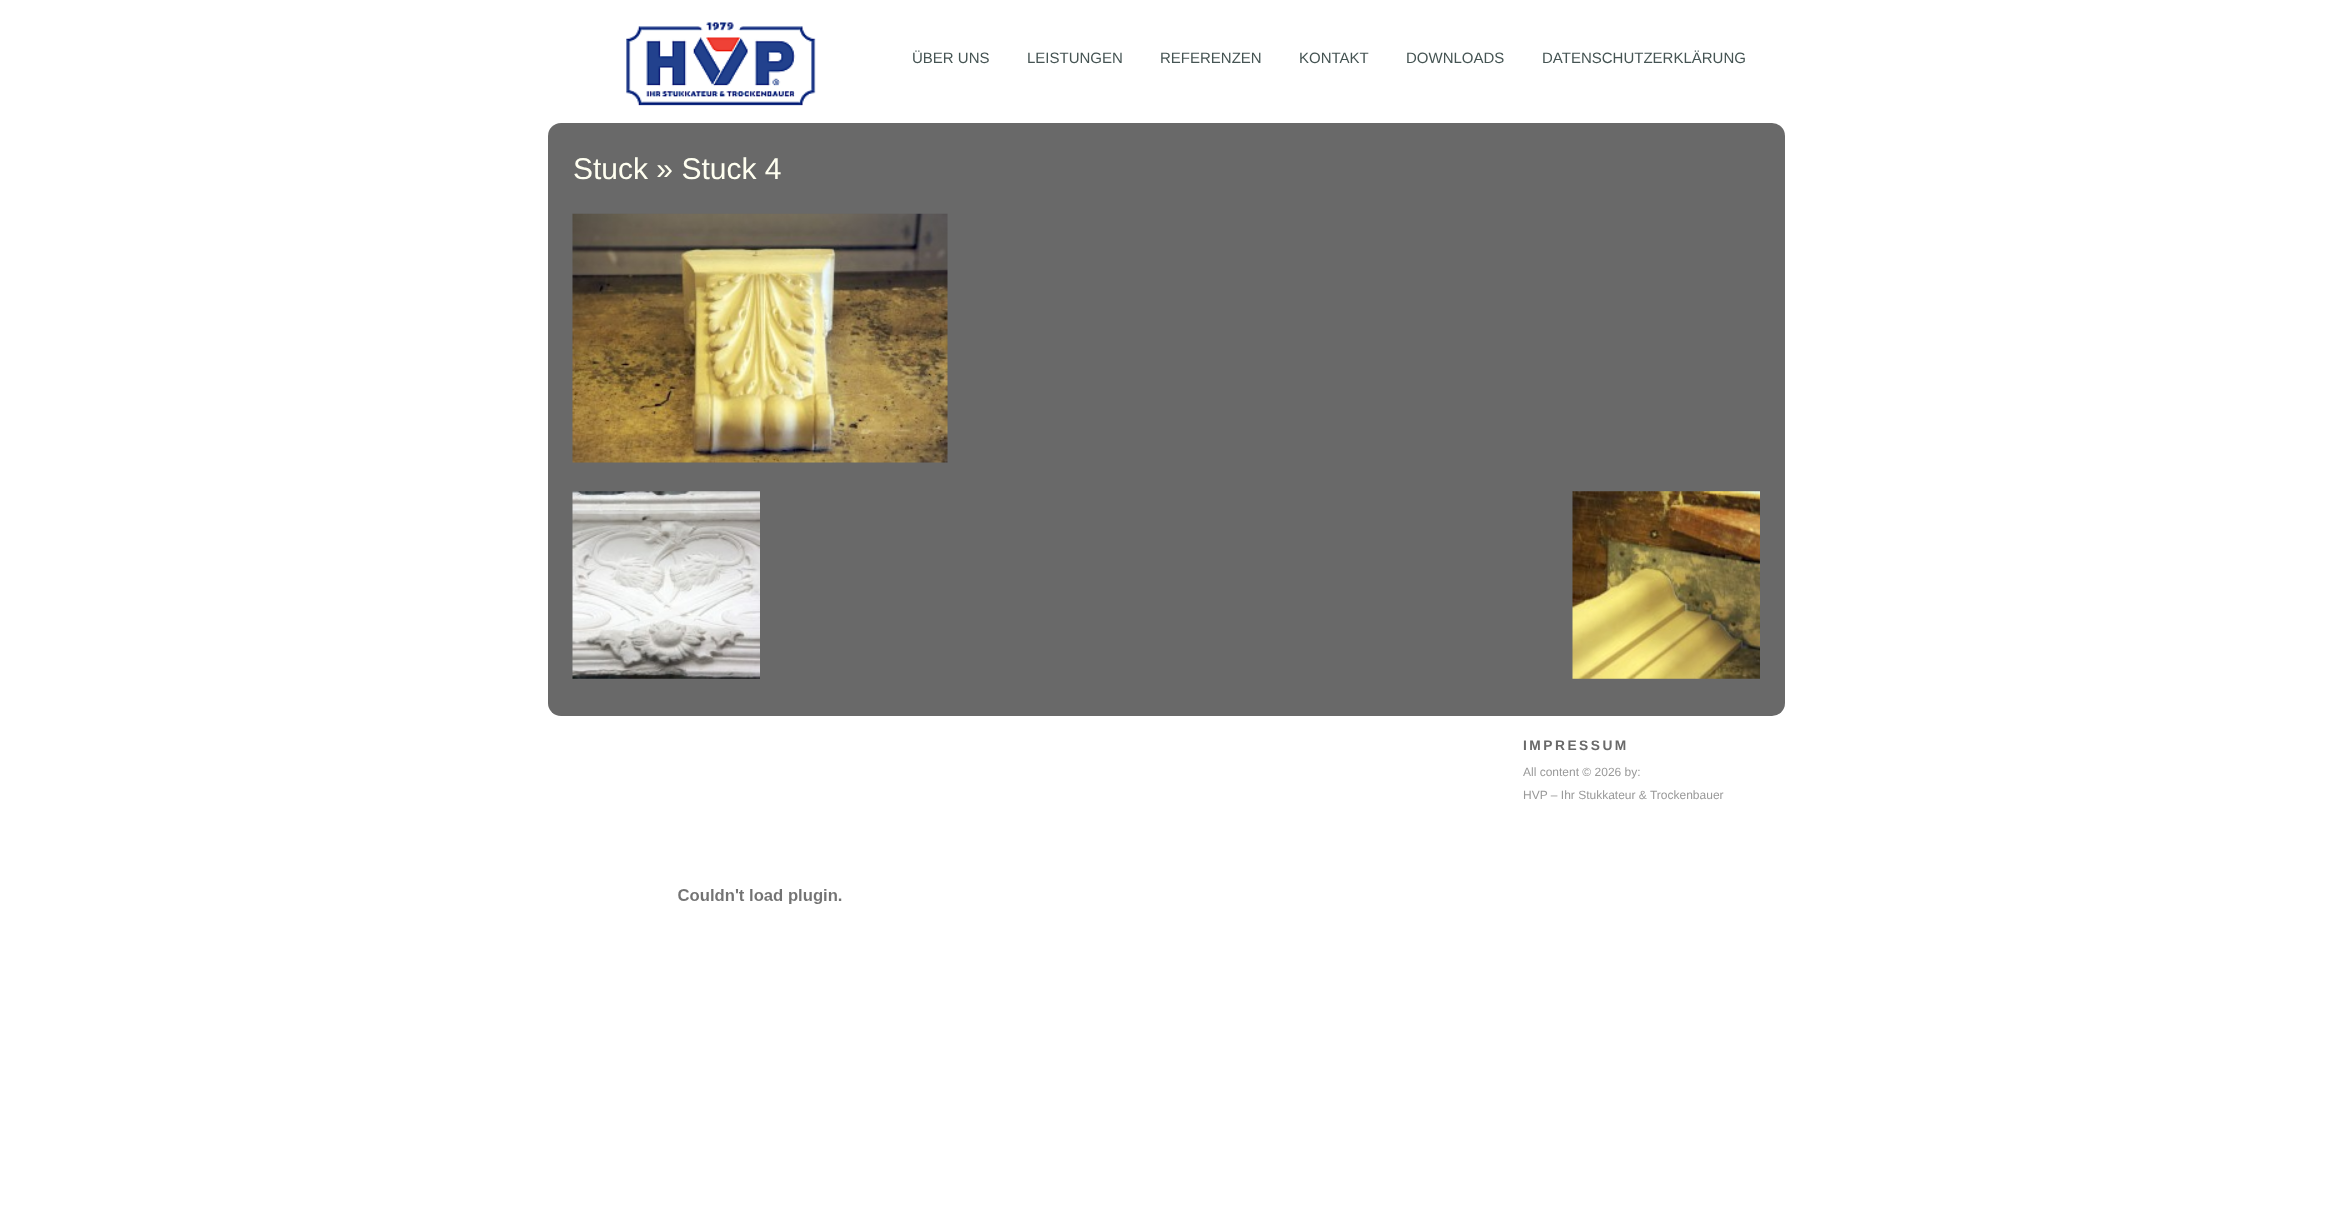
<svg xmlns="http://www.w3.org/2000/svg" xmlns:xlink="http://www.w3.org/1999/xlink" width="2332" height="1231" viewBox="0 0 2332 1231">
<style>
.cls-1{font:15px Liberation Sans;fill:#455453}
.cls-2{font:30px Liberation Sans;fill:#fffff0}
.cls-3{font:bold 13.75px Liberation Sans;letter-spacing:2.5px;fill:#696969}
.cls-4{font:12px Liberation Sans;fill:#999999}
</style>
<rect width="100%" height="100%" fill="#ffffff"/>
<image xlink:href="image0.png" x="626" y="22" width="190" height="84"/>
<rect fill="#696969" x="548" y="123" width="1237" height="593" rx="13"/>
<image xlink:href="image1.png" x="572" y="213" width="376" height="250"/>
<image xlink:href="image2.png" x="572" y="491" width="188" height="188"/>
<image xlink:href="image3.png" x="1572" y="491" width="188" height="188"/>
<image xlink:href="image4.png" x="678" y="889" width="164" height="15"/>
<text class="cls-1" x="912" y="63">ÜBER UNS</text>
<text class="cls-1" x="1027" y="63">LEISTUNGEN</text>
<text class="cls-1" x="1160" y="63">REFERENZEN</text>
<text class="cls-1" x="1299" y="63">KONTAKT</text>
<text class="cls-1" x="1406" y="63">DOWNLOADS</text>
<text class="cls-1" x="1542" y="63">DATENSCHUTZERKLÄRUNG</text>
<text class="cls-2" x="573" y="179">Stuck » Stuck 4</text>
<text class="cls-3" x="1523" y="750">IMPRESSUM</text>
<text class="cls-4"><tspan x="1523" y="776">All content © 2026 by:</tspan><tspan x="1523" y="799">HVP – Ihr Stukkateur &amp; Trockenbauer</tspan></text>
</svg>
